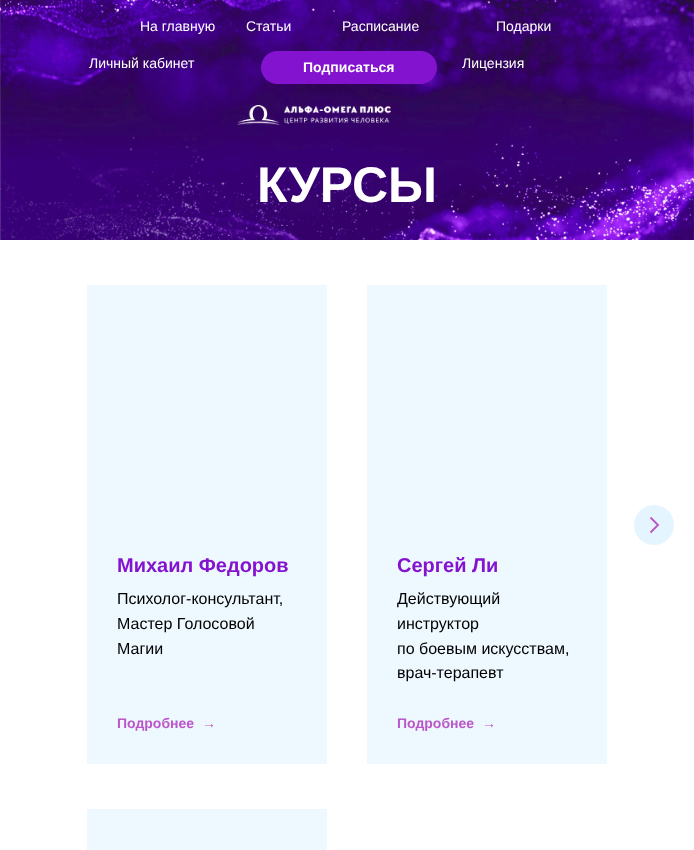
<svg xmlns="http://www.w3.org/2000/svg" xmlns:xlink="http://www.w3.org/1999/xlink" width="694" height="850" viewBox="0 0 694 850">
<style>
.cls-1{font:14px Liberation Sans;fill:#ffffff}
.cls-2{font:bold 14px Liberation Sans;fill:#ffffff}
.cls-3{font:bold 50px Liberation Sans;fill:#ffffff}
.cls-4{font:bold 20px Liberation Sans;fill:#8413cf}
.cls-5{font:16px Liberation Sans;fill:#000000}
.cls-6{font:bold 14px Liberation Sans;fill:#bc57c9}
</style>
<rect width="100%" height="100%" fill="#ffffff"/>
<image xlink:href="image0.png" x="0" y="0" width="694" height="240"/>
<rect fill="#8413cf" x="261" y="51" width="176" height="33" rx="16.5"/>
<image xlink:href="image1.png" x="237" y="105" width="154" height="20"/>
<circle fill="#e5f5ff" cx="654" cy="525" r="20"/>
<path fill="none" stroke="#bc57c9" stroke-width="1.9" d="M650.5 517.5L658 525L650.5 532.5"/>
<rect fill="#edf8ff" x="87" y="285" width="240" height="479"/>
<rect fill="#edf8ff" x="367" y="285" width="240" height="479"/>
<rect fill="#edf8ff" x="87" y="809" width="240" height="41"/>
<text class="cls-1" x="140" y="31">На главную</text>
<text class="cls-1" x="246" y="31">Статьи</text>
<text class="cls-1" x="342" y="31">Расписание</text>
<text class="cls-1" x="496" y="31">Подарки</text>
<text class="cls-1" x="89" y="68">Личный кабинет</text>
<text class="cls-2" x="303" y="72">Подписаться</text>
<text class="cls-1" x="462" y="68">Лицензия</text>
<text class="cls-3" x="257" y="202">КУРСЫ</text>
<text class="cls-4" x="117" y="572">Михаил Федоров</text>
<text class="cls-5"><tspan x="117" y="604">Психолог-консультант,</tspan><tspan x="117" y="629">Мастер Голосовой</tspan><tspan x="117" y="654">Магии</tspan></text>
<text class="cls-6" x="117" y="728">Подробнее</text>
<text class="cls-6" x="202" y="728">→</text>
<text class="cls-4" x="397" y="572">Сергей Ли</text>
<text class="cls-5"><tspan x="397" y="604">Действующий</tspan><tspan x="397" y="629">инструктор</tspan><tspan x="397" y="654">по боевым искусствам,</tspan><tspan x="397" y="678">врач-терапевт</tspan></text>
<text class="cls-6" x="397" y="728">Подробнее</text>
<text class="cls-6" x="482" y="728">→</text>
</svg>
